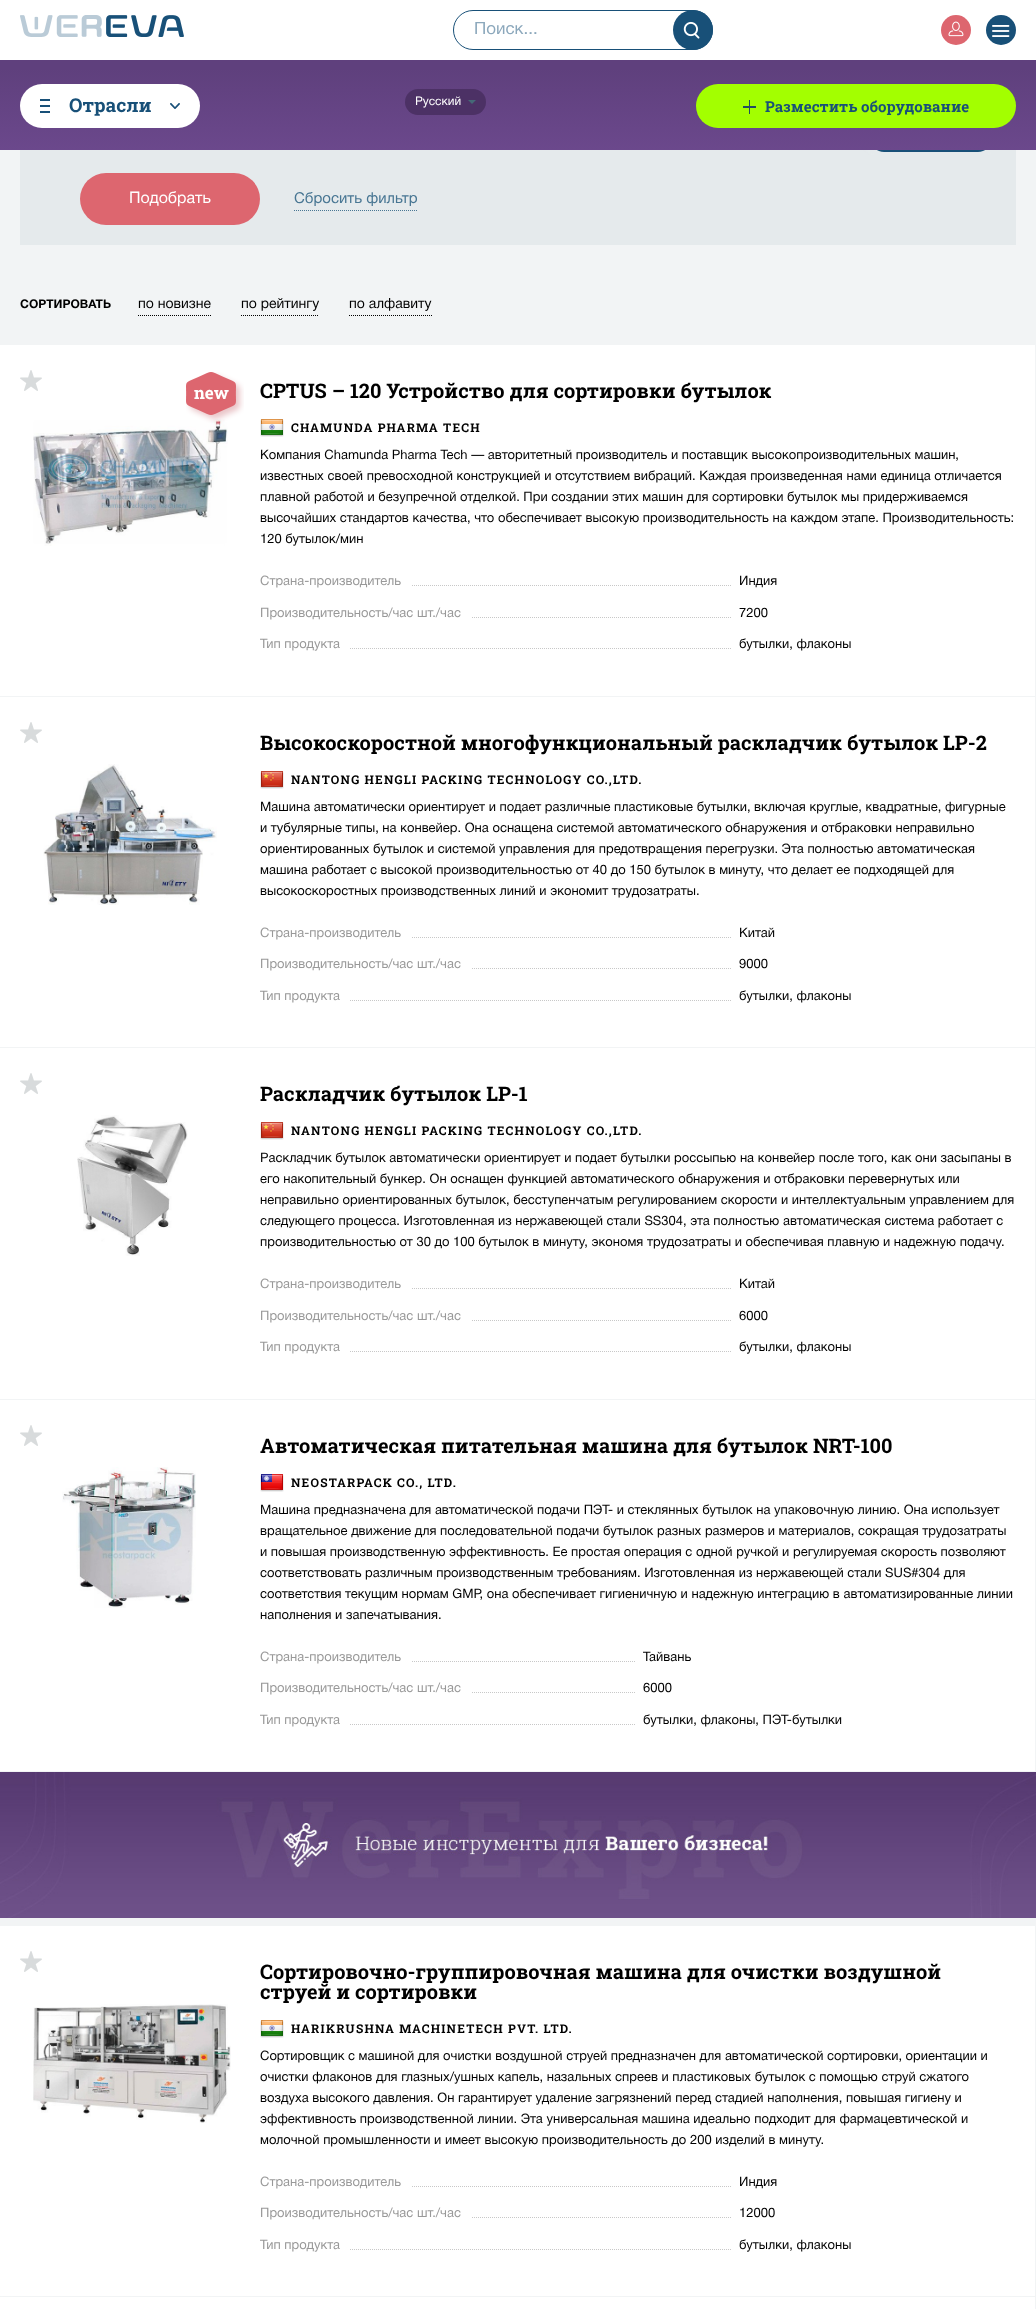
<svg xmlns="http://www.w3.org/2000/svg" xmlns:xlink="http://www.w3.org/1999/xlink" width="1036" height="2309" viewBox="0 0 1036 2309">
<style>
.cls-1{font:17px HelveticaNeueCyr;fill:#8ca8bc}
.cls-2{font:bold 19px Roboto Slab;fill:#185078}
.cls-3{font:12px HelveticaNeueCyr;fill:#ffffff}
.cls-4{font:bold 15px Roboto Slab;fill:#185078}
.cls-5{font:16px HelveticaNeueCyr;fill:#ffffff}
.cls-6{font:15px HelveticaNeueCyr;fill:#487693}
.cls-7{font:bold 12px HelveticaNeueCyr;fill:#000000}
.cls-8{font:14px HelveticaNeueCyr;fill:#000000}
.cls-9{font:bold 17px Roboto Slab;fill:#ffffff}
.cls-10{font:bold 20px Roboto Slab;fill:#000000}
.cls-11{font:bold 12px Roboto Slab;letter-spacing:1.2px;fill:#000000}
.cls-12{font:13px HelveticaNeueCyr;fill:#000000}
.cls-13{font:13px HelveticaNeueCyr;fill:#999999}
</style>
<defs>
<clipPath id="clip1"><rect x="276" y="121" width="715" height="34"/></clipPath>
<linearGradient id="g1" gradientUnits="userSpaceOnUse" x1="518" y1="60" x2="518" y2="150"><stop offset="0.1" stop-color="#5f407d"/><stop offset="1" stop-color="#6b488c"/></linearGradient>
<clipPath id="clip2"><rect x="260" y="561" width="755" height="95"/></clipPath>
<clipPath id="clip3"><rect x="260" y="913" width="755" height="94"/></clipPath>
<clipPath id="clip4"><rect x="260" y="1264" width="755" height="95"/></clipPath>
<clipPath id="clip5"><rect x="260" y="1637" width="755" height="94"/></clipPath>
<clipPath id="clip6"><rect x="260" y="2162" width="755" height="94"/></clipPath>
<clipPath id="clip7"><rect x="474" y="22" width="183" height="16"/></clipPath>
</defs>
<rect width="100%" height="100%" fill="#f2f4f5"/>
<rect fill="#ffffff" x="0" y="0" width="1036" height="60"/>
<image xlink:href="image0.png" x="20" y="15" width="164" height="22"/>
<rect fill="none" stroke="#185078" x="453.5" y="10.5" width="259" height="39" rx="19.5"/>
<circle fill="#185078" cx="693" cy="30" r="20"/>
<image xlink:href="image1.png" x="683" y="21" width="17" height="18"/>
<circle fill="#dd666f" cx="956" cy="30" r="15"/>
<image xlink:href="image2.png" x="948" y="21" width="16" height="16"/>
<circle fill="#185078" cx="1001" cy="30" r="15"/>
<image xlink:href="image3.png" x="992" y="25" width="18" height="12"/>
<rect fill="#e5eaec" x="20" y="150" width="996" height="95"/>
<g clip-path="url(#clip1)">
<rect fill="#e5eaec" filter="blur(1px)" x="863" y="117" width="136" height="43" rx="21"/>
</g>
<rect fill="#185078" x="871" y="125" width="120" height="27" rx="13"/>
<rect fill="url(#g1)" x="0" y="60" width="1036" height="90"/>
<rect fill="#ffffff" x="20" y="84" width="180" height="44" rx="22"/>
<rect fill="#185078" x="40" y="99" width="10" height="2"/>
<rect fill="#185078" x="40" y="111" width="10" height="2"/>
<rect fill="#185078" x="40" y="105" width="10" height="2"/>
<image xlink:href="image4.png" x="170" y="103" width="10" height="6"/>
<rect fill="#4c3165" x="405" y="89" width="81" height="26" rx="13"/>
<path fill="#456877" d="M468 100H476L472 104Z"/>
<rect fill="#a3ff00" x="696" y="84" width="320" height="44" rx="22"/>
<rect fill="#224a64" x="749" y="100" width="1" height="14"/>
<rect fill="#224a64" x="743" y="106" width="13" height="2"/>
<rect fill="#dd666f" x="80" y="173" width="180" height="52" rx="26"/>
<path fill="none" stroke="#487693" stroke-dasharray="1 1" d="M294 210.5H418"/>
<path fill="none" stroke="#000000" stroke-dasharray="1 1" d="M138 315.5H211"/>
<path fill="none" stroke="#000000" stroke-dasharray="1 1" d="M241 315.5H319"/>
<path fill="none" stroke="#000000" stroke-dasharray="1 1" d="M349 315.5H432"/>
<rect fill="#ffffff" x="0" y="345" width="1035" height="351"/>
<image xlink:href="image5.png" x="20" y="370" width="22" height="21"/>
<image xlink:href="image7.png" x="33" y="419" width="195" height="127"/>
<image xlink:href="image6.png" x="186" y="372" width="58" height="51"/>
<image xlink:href="image8.png" x="260" y="419" width="24" height="18"/>
<g clip-path="url(#clip2)">
<path fill="none" stroke="#c8c8c8" stroke-dasharray="1 1" d="M260 585.5H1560"/>
</g>
<rect fill="#ffffff" x="260" y="585" width="151" height="1"/>
<rect fill="#ffffff" x="732" y="585" width="283" height="1"/>
<g clip-path="url(#clip2)">
<path fill="none" stroke="#c8c8c8" stroke-dasharray="1 1" d="M260 617.5H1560"/>
</g>
<rect fill="#ffffff" x="260" y="617" width="211" height="1"/>
<rect fill="#ffffff" x="732" y="617" width="283" height="1"/>
<g clip-path="url(#clip2)">
<path fill="none" stroke="#c8c8c8" stroke-dasharray="1 1" d="M260 648.5H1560"/>
</g>
<rect fill="#ffffff" x="260" y="648" width="89" height="1"/>
<rect fill="#ffffff" x="732" y="648" width="283" height="1"/>
<rect fill="#ffffff" x="0" y="697" width="1035" height="350"/>
<image xlink:href="image5.png" x="20" y="722" width="22" height="21"/>
<image xlink:href="image9.png" x="43" y="764" width="174" height="141"/>
<image xlink:href="image10.png" x="260" y="771" width="24" height="18"/>
<g clip-path="url(#clip3)">
<path fill="none" stroke="#c8c8c8" stroke-dasharray="1 1" d="M260 937.5H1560"/>
</g>
<rect fill="#ffffff" x="260" y="937" width="151" height="1"/>
<rect fill="#ffffff" x="732" y="937" width="283" height="1"/>
<g clip-path="url(#clip3)">
<path fill="none" stroke="#c8c8c8" stroke-dasharray="1 1" d="M260 968.5H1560"/>
</g>
<rect fill="#ffffff" x="260" y="968" width="211" height="1"/>
<rect fill="#ffffff" x="732" y="968" width="283" height="1"/>
<g clip-path="url(#clip3)">
<path fill="none" stroke="#c8c8c8" stroke-dasharray="1 1" d="M260 1000.5H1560"/>
</g>
<rect fill="#ffffff" x="260" y="1000" width="89" height="1"/>
<rect fill="#ffffff" x="732" y="1000" width="283" height="1"/>
<rect fill="#ffffff" x="0" y="1048" width="1035" height="351"/>
<image xlink:href="image5.png" x="20" y="1073" width="22" height="21"/>
<image xlink:href="image11.png" x="77" y="1115" width="111" height="141"/>
<image xlink:href="image10.png" x="260" y="1122" width="24" height="18"/>
<g clip-path="url(#clip4)">
<path fill="none" stroke="#c8c8c8" stroke-dasharray="1 1" d="M260 1288.5H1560"/>
</g>
<rect fill="#ffffff" x="260" y="1288" width="151" height="1"/>
<rect fill="#ffffff" x="732" y="1288" width="283" height="1"/>
<g clip-path="url(#clip4)">
<path fill="none" stroke="#c8c8c8" stroke-dasharray="1 1" d="M260 1320.5H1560"/>
</g>
<rect fill="#ffffff" x="260" y="1320" width="211" height="1"/>
<rect fill="#ffffff" x="732" y="1320" width="283" height="1"/>
<g clip-path="url(#clip4)">
<path fill="none" stroke="#c8c8c8" stroke-dasharray="1 1" d="M260 1351.5H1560"/>
</g>
<rect fill="#ffffff" x="260" y="1351" width="89" height="1"/>
<rect fill="#ffffff" x="732" y="1351" width="283" height="1"/>
<rect fill="#ffffff" x="0" y="1400" width="1035" height="371"/>
<image xlink:href="image5.png" x="20" y="1425" width="22" height="21"/>
<image xlink:href="image12.png" x="62" y="1467" width="134" height="141"/>
<image xlink:href="image13.png" x="260" y="1474" width="24" height="18"/>
<g clip-path="url(#clip5)">
<path fill="none" stroke="#c8c8c8" stroke-dasharray="1 1" d="M260 1661.5H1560"/>
</g>
<rect fill="#ffffff" x="260" y="1661" width="151" height="1"/>
<rect fill="#ffffff" x="636" y="1661" width="379" height="1"/>
<g clip-path="url(#clip5)">
<path fill="none" stroke="#c8c8c8" stroke-dasharray="1 1" d="M260 1692.5H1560"/>
</g>
<rect fill="#ffffff" x="260" y="1692" width="211" height="1"/>
<rect fill="#ffffff" x="636" y="1692" width="379" height="1"/>
<g clip-path="url(#clip5)">
<path fill="none" stroke="#c8c8c8" stroke-dasharray="1 1" d="M260 1724.5H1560"/>
</g>
<rect fill="#ffffff" x="260" y="1724" width="89" height="1"/>
<rect fill="#ffffff" x="636" y="1724" width="379" height="1"/>
<image xlink:href="image14.png" x="0" y="1772" width="1036" height="146"/>
<rect fill="#ffffff" x="0" y="1926" width="1035" height="370"/>
<image xlink:href="image5.png" x="20" y="1951" width="22" height="21"/>
<image xlink:href="image15.png" x="33" y="2004" width="198" height="119"/>
<image xlink:href="image8.png" x="260" y="2020" width="24" height="18"/>
<g clip-path="url(#clip6)">
<path fill="none" stroke="#c8c8c8" stroke-dasharray="1 1" d="M260 2186.5H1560"/>
</g>
<rect fill="#ffffff" x="260" y="2186" width="151" height="1"/>
<rect fill="#ffffff" x="732" y="2186" width="283" height="1"/>
<g clip-path="url(#clip6)">
<path fill="none" stroke="#c8c8c8" stroke-dasharray="1 1" d="M260 2217.5H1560"/>
</g>
<rect fill="#ffffff" x="260" y="2217" width="211" height="1"/>
<rect fill="#ffffff" x="732" y="2217" width="283" height="1"/>
<g clip-path="url(#clip6)">
<path fill="none" stroke="#c8c8c8" stroke-dasharray="1 1" d="M260 2249.5H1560"/>
</g>
<rect fill="#ffffff" x="260" y="2249" width="89" height="1"/>
<rect fill="#ffffff" x="732" y="2249" width="283" height="1"/>
<rect fill="#ffffff" x="0" y="2297" width="1035" height="12"/>
<g clip-path="url(#clip7)">
<text class="cls-1" x="474" y="34">Поиск...</text>
</g>
<text class="cls-2" x="69" y="112">Отрасли</text>
<text class="cls-3" x="415" y="105">Русский</text>
<text class="cls-4" x="765" y="112">Разместить оборудование</text>
<text class="cls-5" x="129" y="203">Подобрать</text>
<text class="cls-6" x="294" y="203">Сбросить фильтр</text>
<text class="cls-7" x="20" y="308">СОРТИРОВАТЬ</text>
<text class="cls-8" x="138" y="308">по новизне</text>
<text class="cls-8" x="241" y="308">по рейтингу</text>
<text class="cls-8" x="349" y="308">по алфавиту</text>
<text class="cls-9" x="194" y="399">new</text>
<text class="cls-10" x="260" y="398">CPTUS – 120 Устройство для сортировки бутылок</text>
<text class="cls-11" x="291" y="432">CHAMUNDA PHARMA TECH</text>
<text class="cls-12"><tspan x="260" y="459">Компания Chamunda Pharma Tech — авторитетный производитель и поставщик высокопроизводительных машин,</tspan><tspan x="260" y="480">известных своей превосходной конструкцией и отсутствием вибраций. Каждая произведенная нами единица отличается</tspan><tspan x="260" y="501">плавной работой и безупречной отделкой. При создании этих машин для сортировки бутылок мы придерживаемся</tspan><tspan x="260" y="522">высочайших стандартов качества, что обеспечивает высокую производительность на каждом этапе. Производительность:</tspan><tspan x="260" y="543">120 бутылок/мин</tspan></text>
<text class="cls-13" x="260" y="585">Страна-производитель</text>
<text class="cls-12" x="739" y="585">Индия</text>
<text class="cls-13" x="260" y="617">Производительность/час шт./час</text>
<text class="cls-12" x="739" y="617">7200</text>
<text class="cls-13" x="260" y="648">Тип продукта</text>
<text class="cls-12" x="739" y="648">бутылки, флаконы</text>
<text class="cls-10" x="260" y="750">Высокоскоростной многофункциональный раскладчик бутылок LP-2</text>
<text class="cls-11" x="291" y="784">NANTONG HENGLI PACKING TECHNOLOGY CO.,LTD.</text>
<text class="cls-12"><tspan x="260" y="811">Машина автоматически ориентирует и подает различные пластиковые бутылки, включая круглые, квадратные, фигурные</tspan><tspan x="260" y="832">и тубулярные типы, на конвейер. Она оснащена системой автоматического обнаружения и отбраковки неправильно</tspan><tspan x="260" y="853">ориентированных бутылок и системой управления для предотвращения перегрузки. Эта полностью автоматическая</tspan><tspan x="260" y="874">машина работает с высокой производительностью от 40 до 150 бутылок в минуту, что делает ее подходящей для</tspan><tspan x="260" y="895">высокоскоростных производственных линий и экономит трудозатраты.</tspan></text>
<text class="cls-13" x="260" y="937">Страна-производитель</text>
<text class="cls-12" x="739" y="937">Китай</text>
<text class="cls-13" x="260" y="968">Производительность/час шт./час</text>
<text class="cls-12" x="739" y="968">9000</text>
<text class="cls-13" x="260" y="1000">Тип продукта</text>
<text class="cls-12" x="739" y="1000">бутылки, флаконы</text>
<text class="cls-10" x="260" y="1101">Раскладчик бутылок LP-1</text>
<text class="cls-11" x="291" y="1135">NANTONG HENGLI PACKING TECHNOLOGY CO.,LTD.</text>
<text class="cls-12"><tspan x="260" y="1162">Раскладчик бутылок автоматически ориентирует и подает бутылки россыпью на конвейер после того, как они засыпаны в</tspan><tspan x="260" y="1183">его накопительный бункер. Он оснащен функцией автоматического обнаружения и отбраковки перевернутых или</tspan><tspan x="260" y="1204">неправильно ориентированных бутылок, бесступенчатым регулированием скорости и интеллектуальным управлением для</tspan><tspan x="260" y="1225">следующего процесса. Изготовленная из нержавеющей стали SS304, эта полностью автоматическая система работает с</tspan><tspan x="260" y="1246">производительностью от 30 до 100 бутылок в минуту, экономя трудозатраты и обеспечивая плавную и надежную подачу.</tspan></text>
<text class="cls-13" x="260" y="1288">Страна-производитель</text>
<text class="cls-12" x="739" y="1288">Китай</text>
<text class="cls-13" x="260" y="1320">Производительность/час шт./час</text>
<text class="cls-12" x="739" y="1320">6000</text>
<text class="cls-13" x="260" y="1351">Тип продукта</text>
<text class="cls-12" x="739" y="1351">бутылки, флаконы</text>
<text class="cls-10" x="260" y="1453">Автоматическая питательная машина для бутылок NRT-100</text>
<text class="cls-11" x="291" y="1487">NEOSTARPACK CO., LTD.</text>
<text class="cls-12"><tspan x="260" y="1514">Машина предназначена для автоматической подачи ПЭТ- и стеклянных бутылок на упаковочную линию. Она использует</tspan><tspan x="260" y="1535">вращательное движение для последовательной подачи бутылок разных размеров и материалов, сокращая трудозатраты</tspan><tspan x="260" y="1556">и повышая производственную эффективность. Ее простая операция с одной ручкой и регулируемая скорость позволяют</tspan><tspan x="260" y="1577">соответствовать различным производственным требованиям. Изготовленная из нержавеющей стали SUS#304 для</tspan><tspan x="260" y="1598">соответствия текущим нормам GMP, она обеспечивает гигиеничную и надежную интеграцию в автоматизированные линии</tspan><tspan x="260" y="1619">наполнения и запечатывания.</tspan></text>
<text class="cls-13" x="260" y="1661">Страна-производитель</text>
<text class="cls-12" x="643" y="1661">Тайвань</text>
<text class="cls-13" x="260" y="1692">Производительность/час шт./час</text>
<text class="cls-12" x="643" y="1692">6000</text>
<text class="cls-13" x="260" y="1724">Тип продукта</text>
<text class="cls-12" x="643" y="1724">бутылки, флаконы, ПЭТ-бутылки</text>
<text class="cls-10"><tspan x="260" y="1979">Сортировочно-группировочная машина для очистки воздушной</tspan><tspan x="260" y="1999">струей и сортировки</tspan></text>
<text class="cls-11" x="291" y="2033">HARIKRUSHNA MACHINETECH PVT. LTD.</text>
<text class="cls-12"><tspan x="260" y="2060">Сортировщик с машиной для очистки воздушной струей предназначен для автоматической сортировки, ориентации и</tspan><tspan x="260" y="2081">очистки флаконов для глазных/ушных капель, назальных спреев и пластиковых бутылок с помощью струй сжатого</tspan><tspan x="260" y="2102">воздуха высокого давления. Он гарантирует удаление загрязнений перед стадией наполнения, повышая гигиену и</tspan><tspan x="260" y="2123">эффективность производственной линии. Эта универсальная машина идеально подходит для фармацевтической и</tspan><tspan x="260" y="2144">молочной промышленности и имеет высокую производительность до 200 изделий в минуту.</tspan></text>
<text class="cls-13" x="260" y="2186">Страна-производитель</text>
<text class="cls-12" x="739" y="2186">Индия</text>
<text class="cls-13" x="260" y="2217">Производительность/час шт./час</text>
<text class="cls-12" x="739" y="2217">12000</text>
<text class="cls-13" x="260" y="2249">Тип продукта</text>
<text class="cls-12" x="739" y="2249">бутылки, флаконы</text>
</svg>
